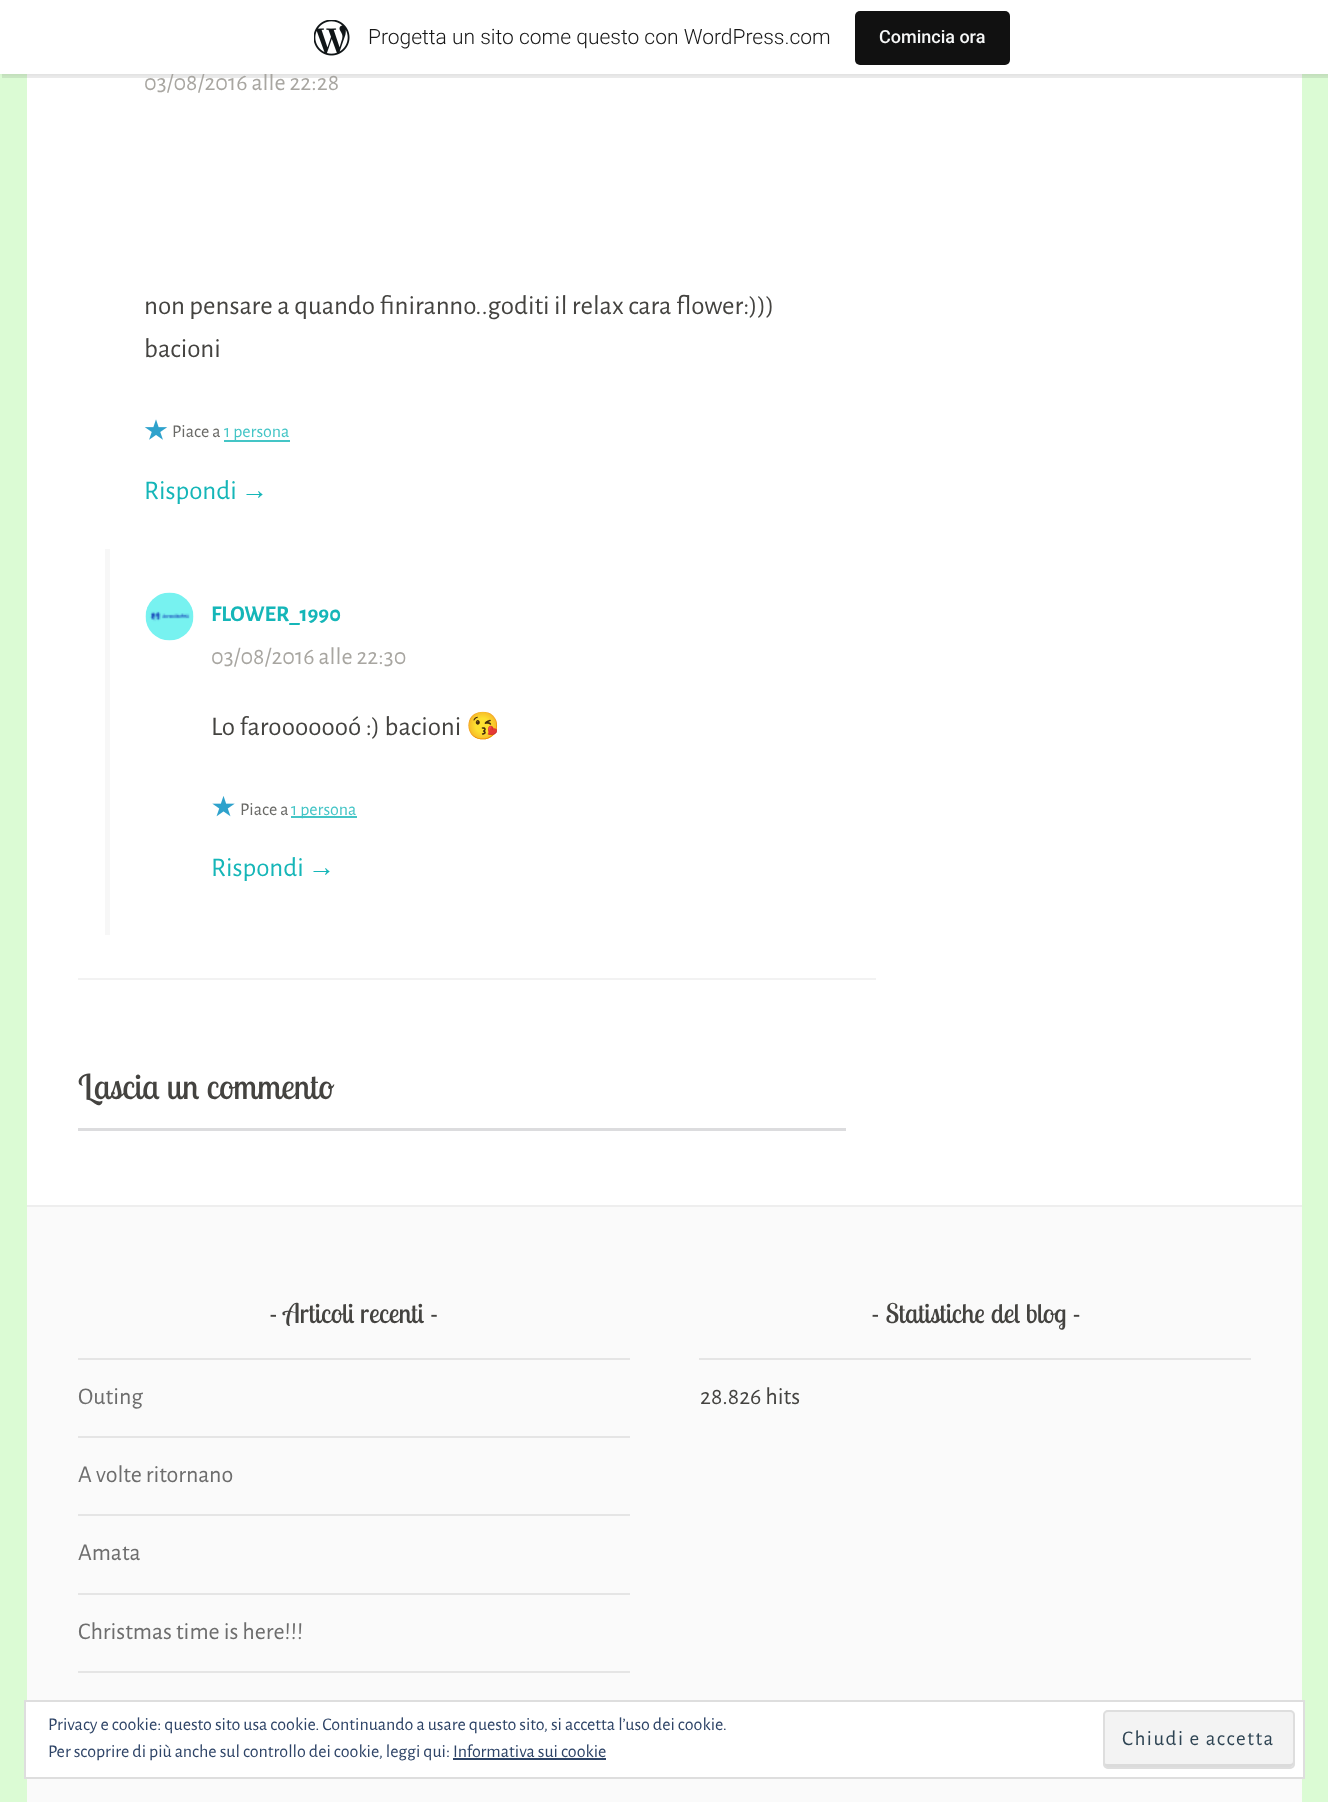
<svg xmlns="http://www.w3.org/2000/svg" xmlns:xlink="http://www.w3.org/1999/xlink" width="1328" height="1802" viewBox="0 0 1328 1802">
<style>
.cls-1{font:24px Alegreya Sans;fill:#a8a6a1}
.cls-2{font:300 21px Roboto;fill:#171717}
.cls-3{font:500 18px Roboto;fill:#f6f7f7}
.cls-4{font:27px Alegreya Sans;fill:#444340}
.cls-5{font:18px Alegreya Sans;fill:#696966}
.cls-6{font:18px Alegreya Sans;fill:#44c5c6}
.cls-7{font:27px Alegreya Sans;fill:#15b6b8}
.cls-8{font:27px Liberation Sans;fill:#15b6b8}
.cls-9{font:bold 22.5px Alegreya Sans;fill:#15b6b8}
.cls-10{font:27px Noto Color Emoji;fill:#444340}
.cls-11{font:34.5px Lobster Two;fill:#444340}
.cls-12{font:27px Lobster Two;fill:#444340}
.cls-13{font:24px Alegreya Sans;fill:#6d6d6d}
.cls-14{font:24px Alegreya Sans;fill:#444340}
.cls-15{font:18px Alegreya Sans;fill:#2e4467}
.cls-16{font:21px Alegreya Sans;letter-spacing:1.5px;fill:#2e4453}
</style>
<rect width="100%" height="100%" fill="#dbfbd4"/>
<rect fill="#ffffff" x="27" y="74" width="1275" height="1131"/>
<rect fill="#000000" fill-opacity="0.05" filter="blur(1.5px)" x="0" y="2" width="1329" height="73"/>
<path fill="#000000" fill-opacity="0.08" d="M2 74V78H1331V5H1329V74Z"/>
<rect fill="#f2f2f2" x="78" y="978" width="798" height="2"/>
<image xlink:href="image1.png" x="144" y="419" width="24" height="21"/>
<rect fill="#44c5c6" x="224" y="440" width="66" height="2"/>
<rect fill="#f7f7f7" x="105" y="549" width="5" height="386"/>
<image xlink:href="image2.png" x="145" y="592" width="49" height="49"/>
<image xlink:href="image3.png" x="212" y="796" width="23" height="21"/>
<rect fill="#44c5c6" x="291" y="816" width="66" height="2"/>
<rect fill="#dcdcde" x="78" y="1128" width="768" height="3"/>
<rect fill="#fafafa" x="27" y="1207" width="1275" height="595"/>
<rect fill="#eeeeee" x="27" y="1205" width="1275" height="2"/>
<rect fill="#e5e5e5" x="78" y="1358" width="552" height="2"/>
<rect fill="#e5e5e5" x="78" y="1436" width="552" height="2"/>
<rect fill="#e5e5e5" x="78" y="1514" width="552" height="2"/>
<rect fill="#e5e5e5" x="78" y="1593" width="552" height="2"/>
<rect fill="#e5e5e5" x="78" y="1671" width="552" height="2"/>
<rect fill="#e5e5e5" x="699" y="1358" width="552" height="2"/>
<rect fill="#ffffff" stroke="#dedede" stroke-width="2" x="25" y="1701" width="1279" height="77"/>
<rect fill="#f3f3f3" x="1103" y="1710" width="192" height="59" rx="5"/>
<path fill="#dbdbdb" d="M1104 1761V1764C1104 1766 1105 1767 1107 1767H1290C1292 1767 1293 1766 1293 1764V1761C1293 1763 1292 1764 1290 1764H1107C1105 1764 1104 1763 1104 1761Z"/>
<rect fill="none" stroke="#dedede" stroke-width="2" x="1104" y="1711" width="190" height="57" rx="4"/>
<rect fill="#2e4467" x="453" y="1758" width="153" height="2"/>
<text class="cls-1" x="144" y="90">03/08/2016 alle 22:28</text>
<rect fill="#ffffff" x="0" y="0" width="1328" height="74"/>
<image xlink:href="image0.png" x="314" y="20" width="36" height="36"/>
<text class="cls-2" x="368" y="44">Progetta un sito come questo con WordPress.com</text>
<rect fill="#111111" x="855" y="11" width="155" height="54" rx="5"/>
<text class="cls-3" x="879" y="43">Comincia ora</text>
<text class="cls-4"><tspan x="144" y="314">non pensare a quando finiranno..goditi il relax cara flower:)))</tspan><tspan x="144" y="357">bacioni</tspan></text>
<text class="cls-5" x="172" y="437">Piace a</text>
<text class="cls-6" x="224" y="437">1 persona</text>
<text class="cls-7" x="144" y="499">Rispondi</text>
<text class="cls-8" x="241" y="499">→</text>
<text class="cls-9" x="211" y="621">FLOWER_1990</text>
<text class="cls-1" x="211" y="664">03/08/2016 alle 22:30</text>
<text class="cls-4" x="211" y="735">Lo farooooooó :) bacioni</text>
<text class="cls-10" x="466" y="735">😘</text>
<text class="cls-5" x="240" y="815">Piace a</text>
<text class="cls-6" x="291" y="815">1 persona</text>
<text class="cls-7" x="211" y="876">Rispondi</text>
<text class="cls-8" x="308" y="876">→</text>
<text class="cls-11" x="78" y="1099">Lascia un commento</text>
<text class="cls-12" x="269" y="1323">- Articoli recenti -</text>
<text class="cls-13" x="78" y="1404">Outing</text>
<text class="cls-13" x="78" y="1482">A volte ritornano</text>
<text class="cls-13" x="78" y="1560">Amata</text>
<text class="cls-13" x="78" y="1639">Christmas time is here!!!</text>
<text class="cls-12" x="871" y="1323">- Statistiche del blog -</text>
<text class="cls-14" x="700" y="1404">28.826 hits</text>
<text class="cls-15" x="48" y="1730">Privacy e cookie: questo sito usa cookie. Continuando a usare questo sito, si accetta l’uso dei cookie.</text>
<text class="cls-16" x="1122" y="1745">Chiudi e accetta</text>
<text class="cls-15" x="48" y="1757">Per scoprire di più anche sul controllo dei cookie, leggi qui: Informativa sui cookie</text>
</svg>
